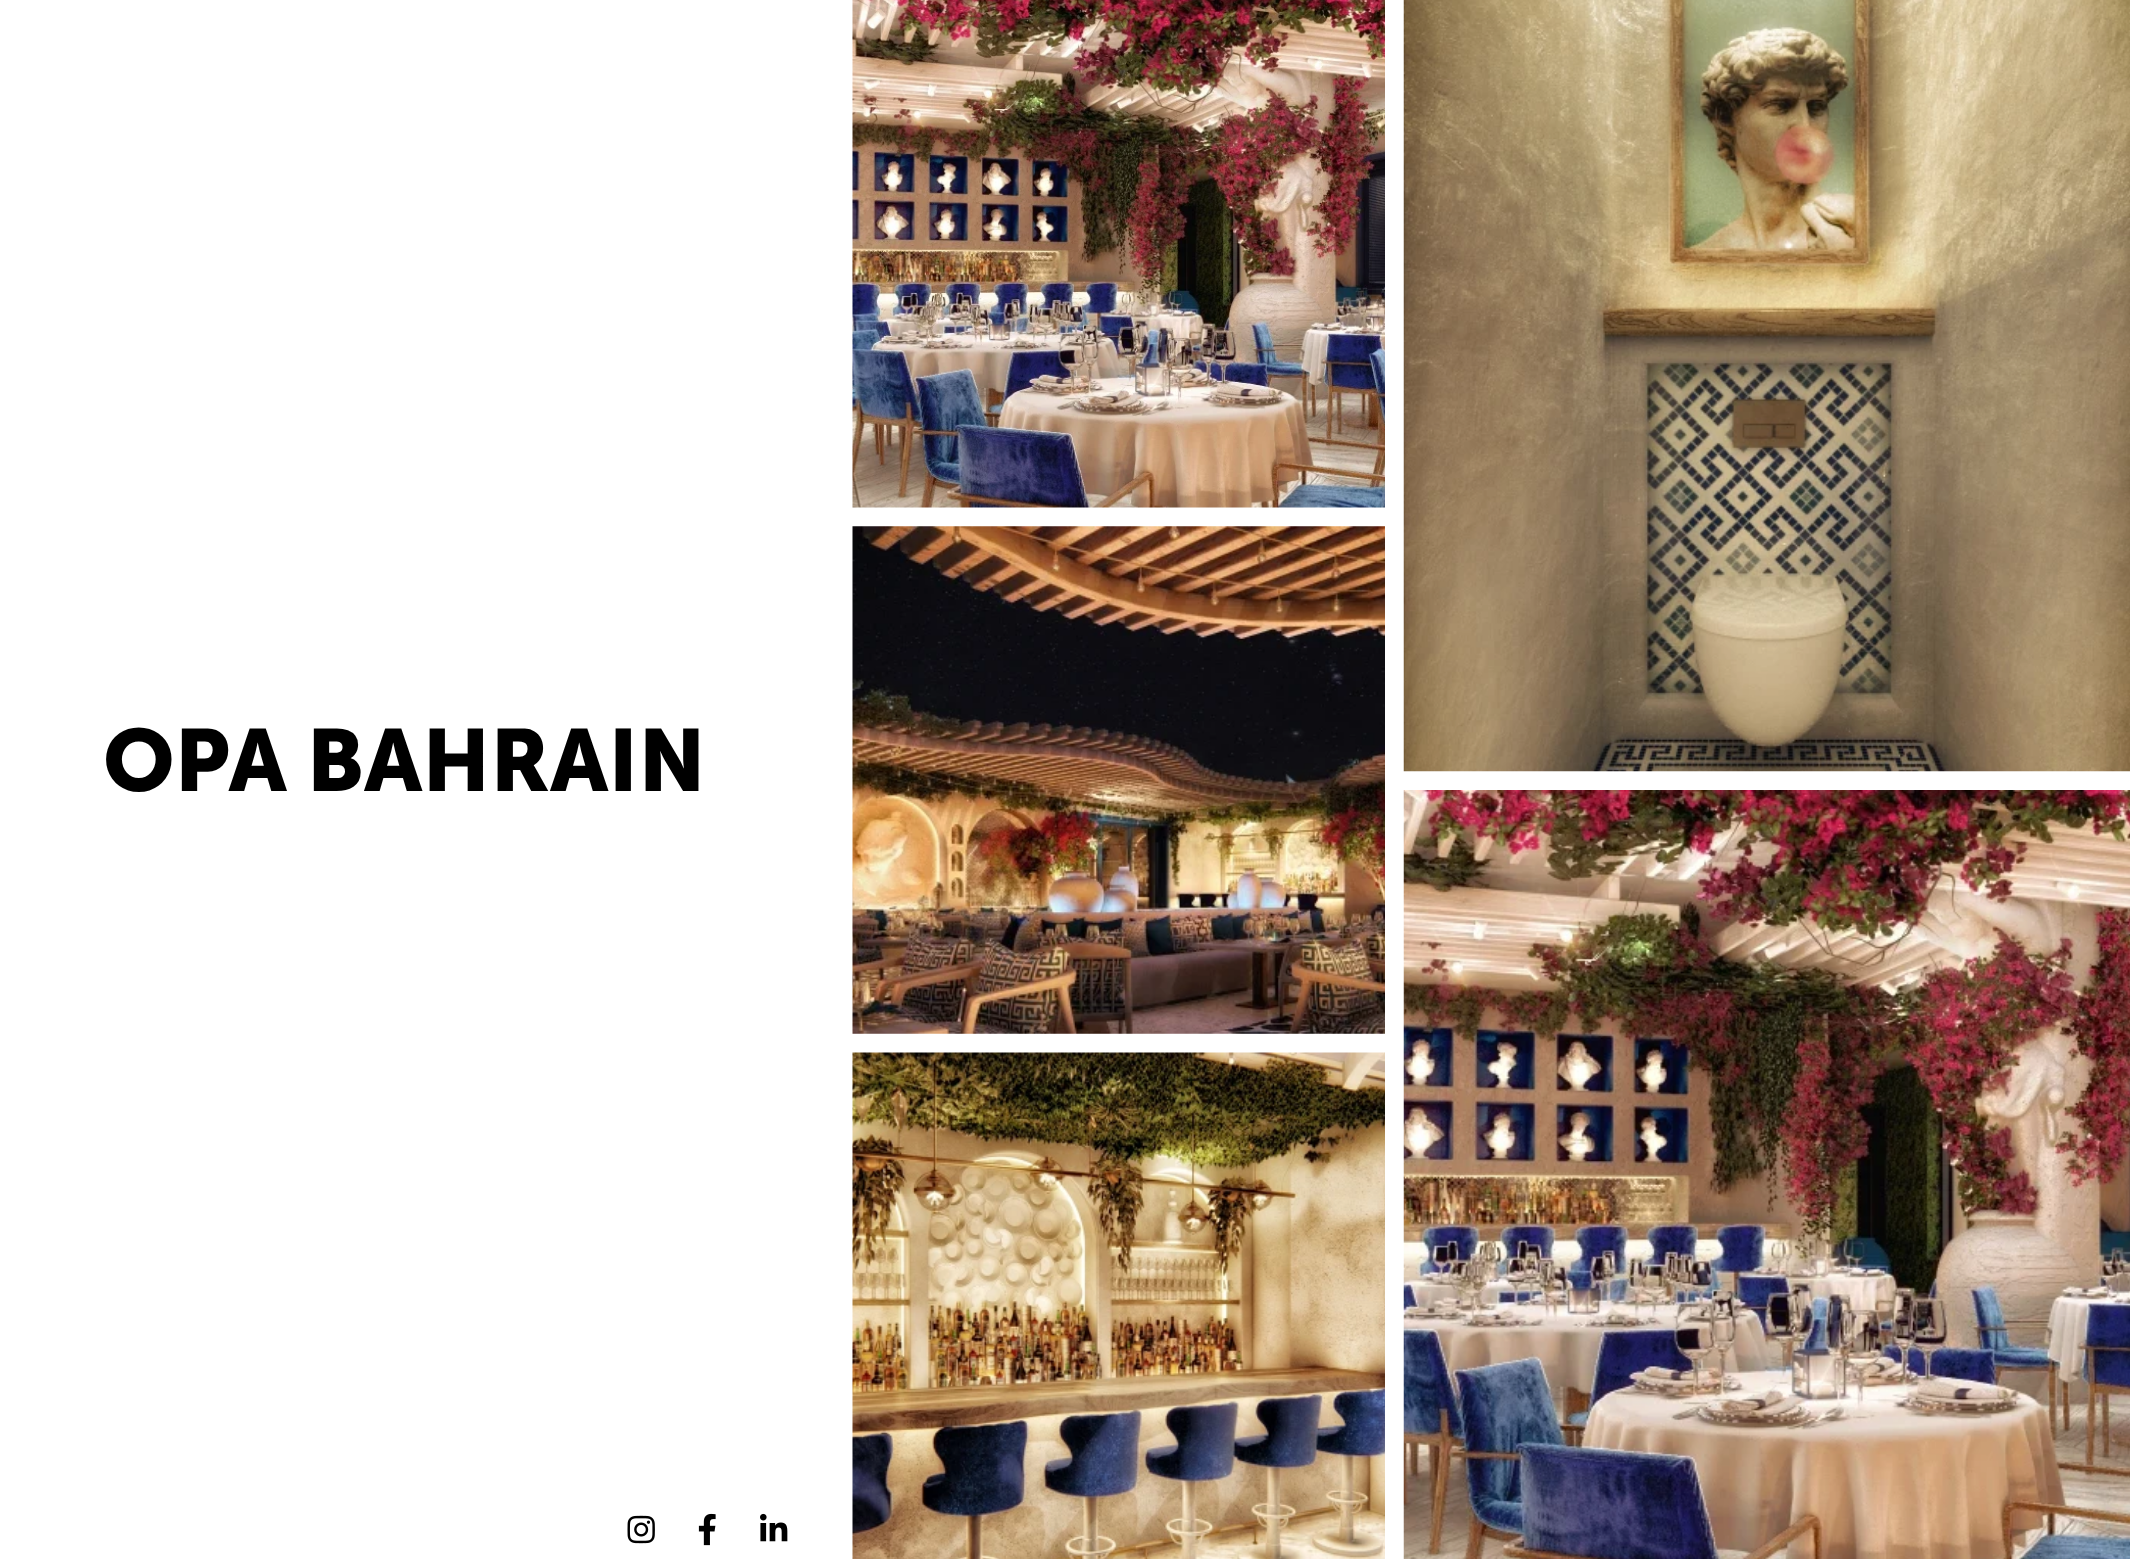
<svg xmlns="http://www.w3.org/2000/svg" xmlns:xlink="http://www.w3.org/1999/xlink" width="2131" height="1559" viewBox="0 0 2131 1559">
<style>
.cls-1{font:bold 87.5px Museo Sans;fill:#000000}
</style>
<rect width="100%" height="100%" fill="#ffffff"/>
<image xlink:href="image0.png" x="627" y="1515" width="28" height="29"/>
<image xlink:href="image1.png" x="698" y="1513" width="18" height="33"/>
<image xlink:href="image2.png" x="760" y="1513" width="28" height="29"/>
<image xlink:href="image3.png" x="852" y="0" width="533" height="508"/>
<image xlink:href="image4.png" x="852" y="526" width="533" height="508"/>
<image xlink:href="image5.png" x="852" y="1052" width="533" height="507"/>
<image xlink:href="image6.png" x="1403" y="0" width="727" height="772"/>
<image xlink:href="image7.png" x="1403" y="790" width="727" height="769"/>
<text class="cls-1" x="103" y="791">OPA BAHRAIN</text>
</svg>
